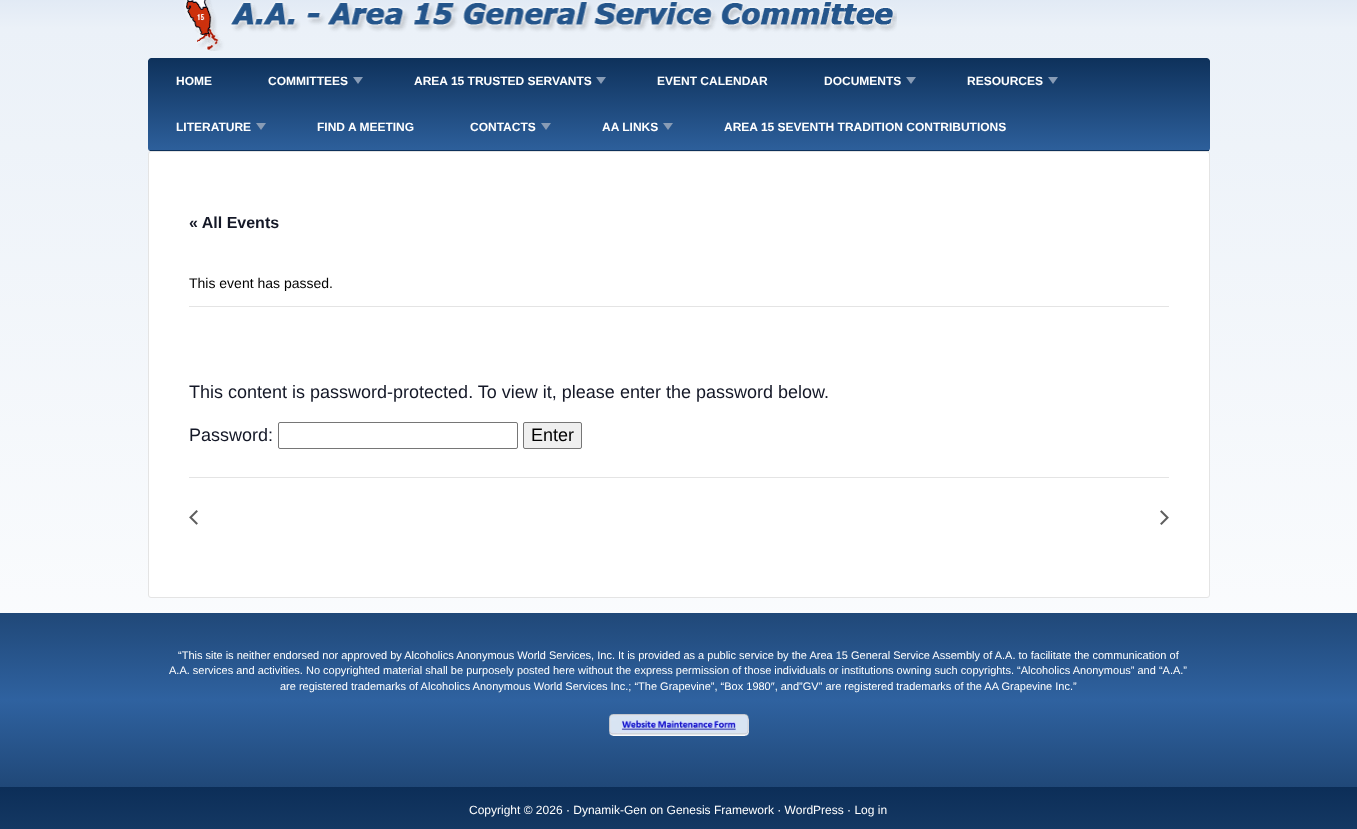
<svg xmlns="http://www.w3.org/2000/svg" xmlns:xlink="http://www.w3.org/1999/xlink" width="1357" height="829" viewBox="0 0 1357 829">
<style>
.cls-1{font:bold 12px Liberation Sans;fill:#ffffff}
.cls-2{font:bold 16px Liberation Sans;fill:#141827}
.cls-3{font:14px Liberation Sans;fill:#000000}
.cls-4{font:18px Liberation Sans;fill:#141827}
.cls-5{font:18px Liberation Sans;fill:#000000}
.cls-6{font:11px Liberation Sans;fill:#ffffff}
.cls-7{font:12px Liberation Sans;fill:#ffffff}
</style>
<defs>
<linearGradient id="g1" gradientUnits="userSpaceOnUse" x1="679" y1="-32" x2="679" y2="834"><stop offset="0" stop-color="#d7e2f1"/><stop offset="0.07" stop-color="#ebf1f8"/><stop offset="1" stop-color="#ffffff"/></linearGradient>
<clipPath id="clip1"><rect x="148" y="58" width="1062" height="93" rx="3"/></clipPath>
<linearGradient id="g2" gradientUnits="userSpaceOnUse" x1="679" y1="58" x2="679" y2="150"><stop offset="0" stop-color="#0e315b"/><stop offset="1" stop-color="#2d5f9b"/></linearGradient>
<linearGradient id="g3" gradientUnits="userSpaceOnUse" x1="679" y1="150" x2="679" y2="242"><stop offset="0" stop-color="#0e315b"/><stop offset="1" stop-color="#2d5f9b"/></linearGradient>
<linearGradient id="g4" gradientUnits="userSpaceOnUse" x1="679" y1="613" x2="679" y2="787"><stop offset="0" stop-color="#204878"/><stop offset="0.5" stop-color="#2f62a0"/><stop offset="1" stop-color="#204878"/></linearGradient>
<linearGradient id="g5" gradientUnits="userSpaceOnUse" x1="679" y1="787" x2="679" y2="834"><stop offset="0" stop-color="#0c2e58"/><stop offset="1" stop-color="#153964"/></linearGradient>
</defs>
<rect width="100%" height="100%" fill="#ffffff"/>
<rect fill="url(#g1)" x="0" y="0" width="1357" height="613"/>
<image xlink:href="image0.png" x="184" y="0" width="713" height="51"/>
<g clip-path="url(#clip1)">
<path fill="url(#g2)" d="M151 58H1207C1208.5 58 1210 59.5 1210 61V150H148V61C148 59.5 149.5 58 151 58Z"/>
<rect fill="url(#g3)" x="148" y="150" width="1062" height="1"/>
</g>
<rect fill="#0e315b" x="150" y="150" width="1059" height="1"/>
<image xlink:href="image1.png" x="353" y="77" width="10" height="7"/>
<image xlink:href="image1.png" x="596" y="77" width="10" height="7"/>
<image xlink:href="image1.png" x="906" y="77" width="10" height="7"/>
<image xlink:href="image1.png" x="1048" y="77" width="10" height="7"/>
<image xlink:href="image2.png" x="256" y="123" width="10" height="7"/>
<image xlink:href="image2.png" x="541" y="123" width="10" height="7"/>
<image xlink:href="image2.png" x="663" y="123" width="10" height="7"/>
<rect fill="#ffffff" stroke="#e4e4e4" x="148.5" y="151.5" width="1061" height="446" rx="2.5"/>
<rect fill="#e4e4e4" x="189" y="306" width="980" height="1"/>
<rect fill="none" stroke="#767676" x="278.5" y="422.5" width="239" height="26" rx="1.5"/>
<rect fill="#efefef" stroke="#767676" x="523.5" y="422.5" width="58" height="26" rx="1.5"/>
<rect fill="#e4e4e4" x="189" y="477" width="980" height="1"/>
<image xlink:href="image3.png" x="189" y="510" width="9" height="15"/>
<image xlink:href="image4.png" x="1160" y="510" width="9" height="15"/>
<rect fill="url(#g4)" x="0" y="613" width="1357" height="174"/>
<image xlink:href="image5.png" x="609" y="714" width="140" height="22"/>
<rect fill="url(#g5)" x="0" y="787" width="1357" height="42"/>
<text class="cls-1" x="176" y="85">HOME</text>
<text class="cls-1" x="268" y="85">COMMITTEES</text>
<text class="cls-1" x="414" y="85">AREA 15 TRUSTED SERVANTS</text>
<text class="cls-1" x="657" y="85">EVENT CALENDAR</text>
<text class="cls-1" x="824" y="85">DOCUMENTS</text>
<text class="cls-1" x="967" y="85">RESOURCES</text>
<text class="cls-1" x="176" y="131">LITERATURE</text>
<text class="cls-1" x="317" y="131">FIND A MEETING</text>
<text class="cls-1" x="470" y="131">CONTACTS</text>
<text class="cls-1" x="602" y="131">AA LINKS</text>
<text class="cls-1" x="724" y="131">AREA 15 SEVENTH TRADITION CONTRIBUTIONS</text>
<text class="cls-2" x="189" y="228">« All Events</text>
<text class="cls-3" x="189" y="288">This event has passed.</text>
<text class="cls-4" x="189" y="398">This content is password-protected. To view it, please enter the password below.</text>
<text class="cls-4" x="189" y="441">Password:</text>
<text class="cls-5" x="531" y="441">Enter</text>
<text class="cls-6" x="178" y="659">“This site is neither endorsed nor approved by Alcoholics Anonymous World Services, Inc. It is provided as a public service by the Area 15 General Service Assembly of A.A. to facilitate the communication of</text>
<text class="cls-6" x="169" y="674">A.A. services and activities. No copyrighted material shall be purposely posted here without the express permission of those individuals or institutions owning such copyrights. “Alcoholics Anonymous” and “A.A.”</text>
<text class="cls-6" x="280" y="690">are registered trademarks of Alcoholics Anonymous World Services Inc.; “The Grapevine”, “Box 1980″, and”GV” are registered trademarks of the AA Grapevine Inc.”</text>
<text class="cls-7" x="469" y="814">Copyright © 2026 · Dynamik-Gen on Genesis Framework · WordPress · Log in</text>
</svg>
